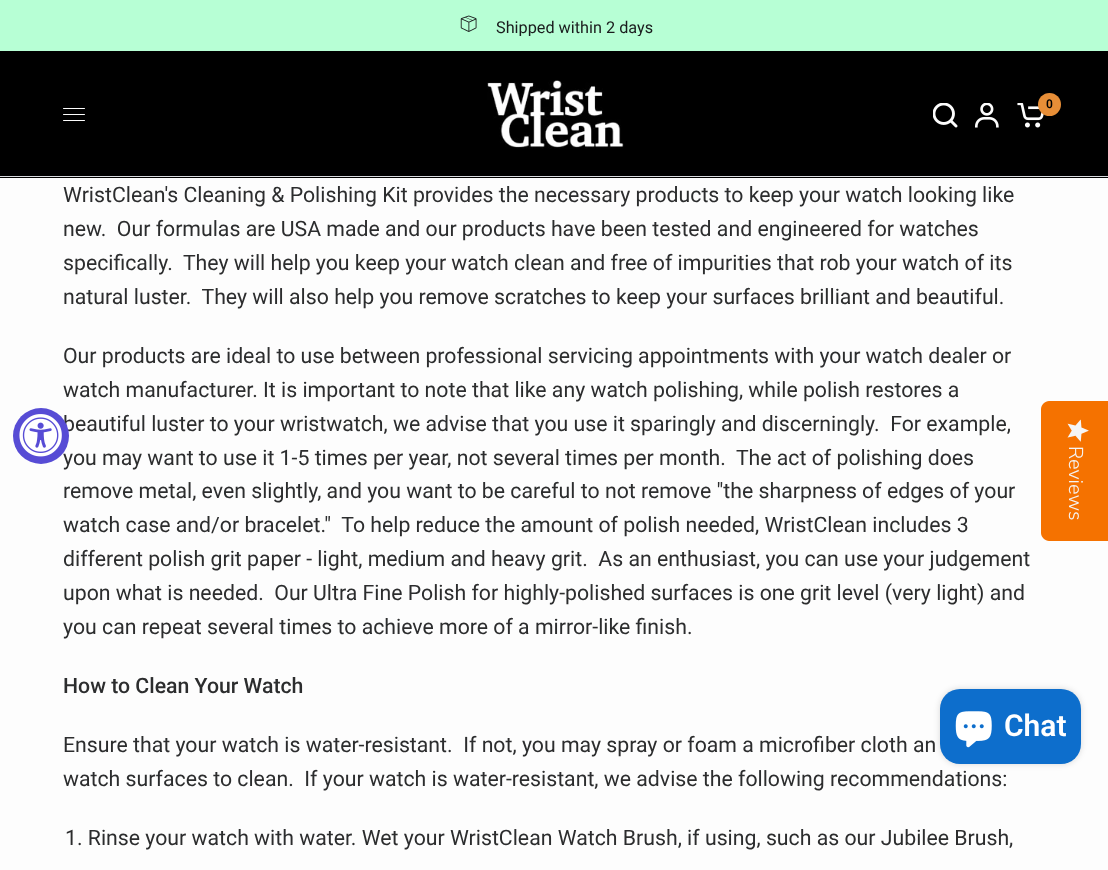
<svg xmlns="http://www.w3.org/2000/svg" xmlns:xlink="http://www.w3.org/1999/xlink" width="1108" height="870" viewBox="0 0 1108 870">
<style>
.cls-1{font:16.25px Roboto;fill:#1a1c1d}
.cls-2{font:600 12px Roboto;fill:#000000}
.cls-3{font:21.25px Roboto;fill:#2c2d2e}
.cls-4{font:500 21.25px Roboto;fill:#2c2d2e}
.cls-5{font:300 20px Nunito Sans;fill:#f5f5f5}
.cls-6{font:600 30px Roboto;fill:#ffffff}
</style>
<defs>
<clipPath id="clip1"><rect x="243" y="15" width="625" height="21"/></clipPath>
</defs>
<rect width="100%" height="100%" fill="#000000"/>
<rect fill="#b7ffd5" x="0" y="0" width="1108" height="51"/>
<image xlink:href="image1.png" x="460" y="15" width="17" height="17"/>
<image xlink:href="image2.png" x="487" y="80" width="137" height="69"/>
<image xlink:href="image3.png" x="933" y="103" width="25" height="25"/>
<image xlink:href="image4.png" x="975" y="103" width="24" height="25"/>
<image xlink:href="image5.png" x="1017" y="103" width="27" height="25"/>
<circle fill="#e78e37" cx="1049.5" cy="104.5" r="11.5"/>
<rect fill="#fdfdfd" x="63" y="108" width="22" height="1" rx="0.5"/>
<rect fill="#fdfdfd" x="63" y="114" width="22" height="1" rx="0.5"/>
<rect fill="#fdfdfd" x="63" y="120" width="22" height="1" rx="0.5"/>
<rect fill="#dadce0" x="0" y="176" width="1108" height="1"/>
<rect fill="#fdfdfd" x="0" y="178" width="1108" height="692"/>
<path fill="#f57200" d="M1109 401V541H1049C1045 541 1041 537 1041 533V409C1041 405 1045 401 1049 401Z"/>
<image xlink:href="image6.png" x="1067" y="419" width="22" height="23"/>
<rect fill="#000000" fill-opacity="0.15" filter="blur(3px)" x="940" y="689" width="141" height="75" rx="20"/>
<rect fill="#0d6ecc" x="940" y="689" width="141" height="75" rx="20"/>
<image xlink:href="image7.png" x="955" y="711" width="37" height="37"/>
<g clip-path="url(#clip1)">
<text class="cls-1" x="496" y="33">Shipped within 2 days</text>
</g>
<text class="cls-2" x="1046" y="108">0</text>
<text class="cls-3" xml:space="preserve"><tspan x="63" y="202">WristClean's Cleaning &amp; Polishing Kit provides the necessary products to keep your watch looking like</tspan><tspan x="63" y="236">new.  Our formulas are USA made and our products have been tested and engineered for watches</tspan><tspan x="63" y="270">specifically.  They will help you keep your watch clean and free of impurities that rob your watch of its</tspan><tspan x="63" y="304">natural luster.  They will also help you remove scratches to keep your surfaces brilliant and beautiful.</tspan></text>
<text class="cls-3" xml:space="preserve"><tspan x="63" y="363">Our products are ideal to use between professional servicing appointments with your watch dealer or</tspan><tspan x="63" y="397">watch manufacturer. It is important to note that like any watch polishing, while polish restores a</tspan><tspan x="63" y="431">beautiful luster to your wristwatch, we advise that you use it sparingly and discerningly.  For example,</tspan><tspan x="63" y="465">you may want to use it 1-5 times per year, not several times per month.  The act of polishing does</tspan></text>
<circle fill="#574cd5" cx="41" cy="436" r="28"/>
<image xlink:href="image0.png" x="19" y="414" width="43" height="43"/>
<text class="cls-3" xml:space="preserve"><tspan x="63" y="498">remove metal, even slightly, and you want to be careful to not remove "the sharpness of edges of your</tspan><tspan x="63" y="532">watch case and/or bracelet."  To help reduce the amount of polish needed, WristClean includes 3</tspan><tspan x="63" y="566">different polish grit paper - light, medium and heavy grit.  As an enthusiast, you can use your judgement</tspan><tspan x="63" y="600">upon what is needed.  Our Ultra Fine Polish for highly-polished surfaces is one grit level (very light) and</tspan><tspan x="63" y="634">you can repeat several times to achieve more of a mirror-like finish.</tspan></text>
<text class="cls-4" x="63" y="693">How to Clean Your Watch</text>
<text class="cls-3" xml:space="preserve"><tspan x="63" y="752">Ensure that your watch is water-resistant.  If not, you may spray or foam a microfiber cloth an</tspan><tspan x="63" y="786">watch surfaces to clean.  If your watch is water-resistant, we advise the following recommendations:</tspan></text>
<text class="cls-3" x="65" y="845">1. Rinse your watch with water. Wet your WristClean Watch Brush, if using, such as our Jubilee Brush,</text>
<text class="cls-5" x="1069" y="446" transform="rotate(90 1069 446)">Reviews</text>
<text class="cls-6" x="1004" y="736">Chat</text>
</svg>
